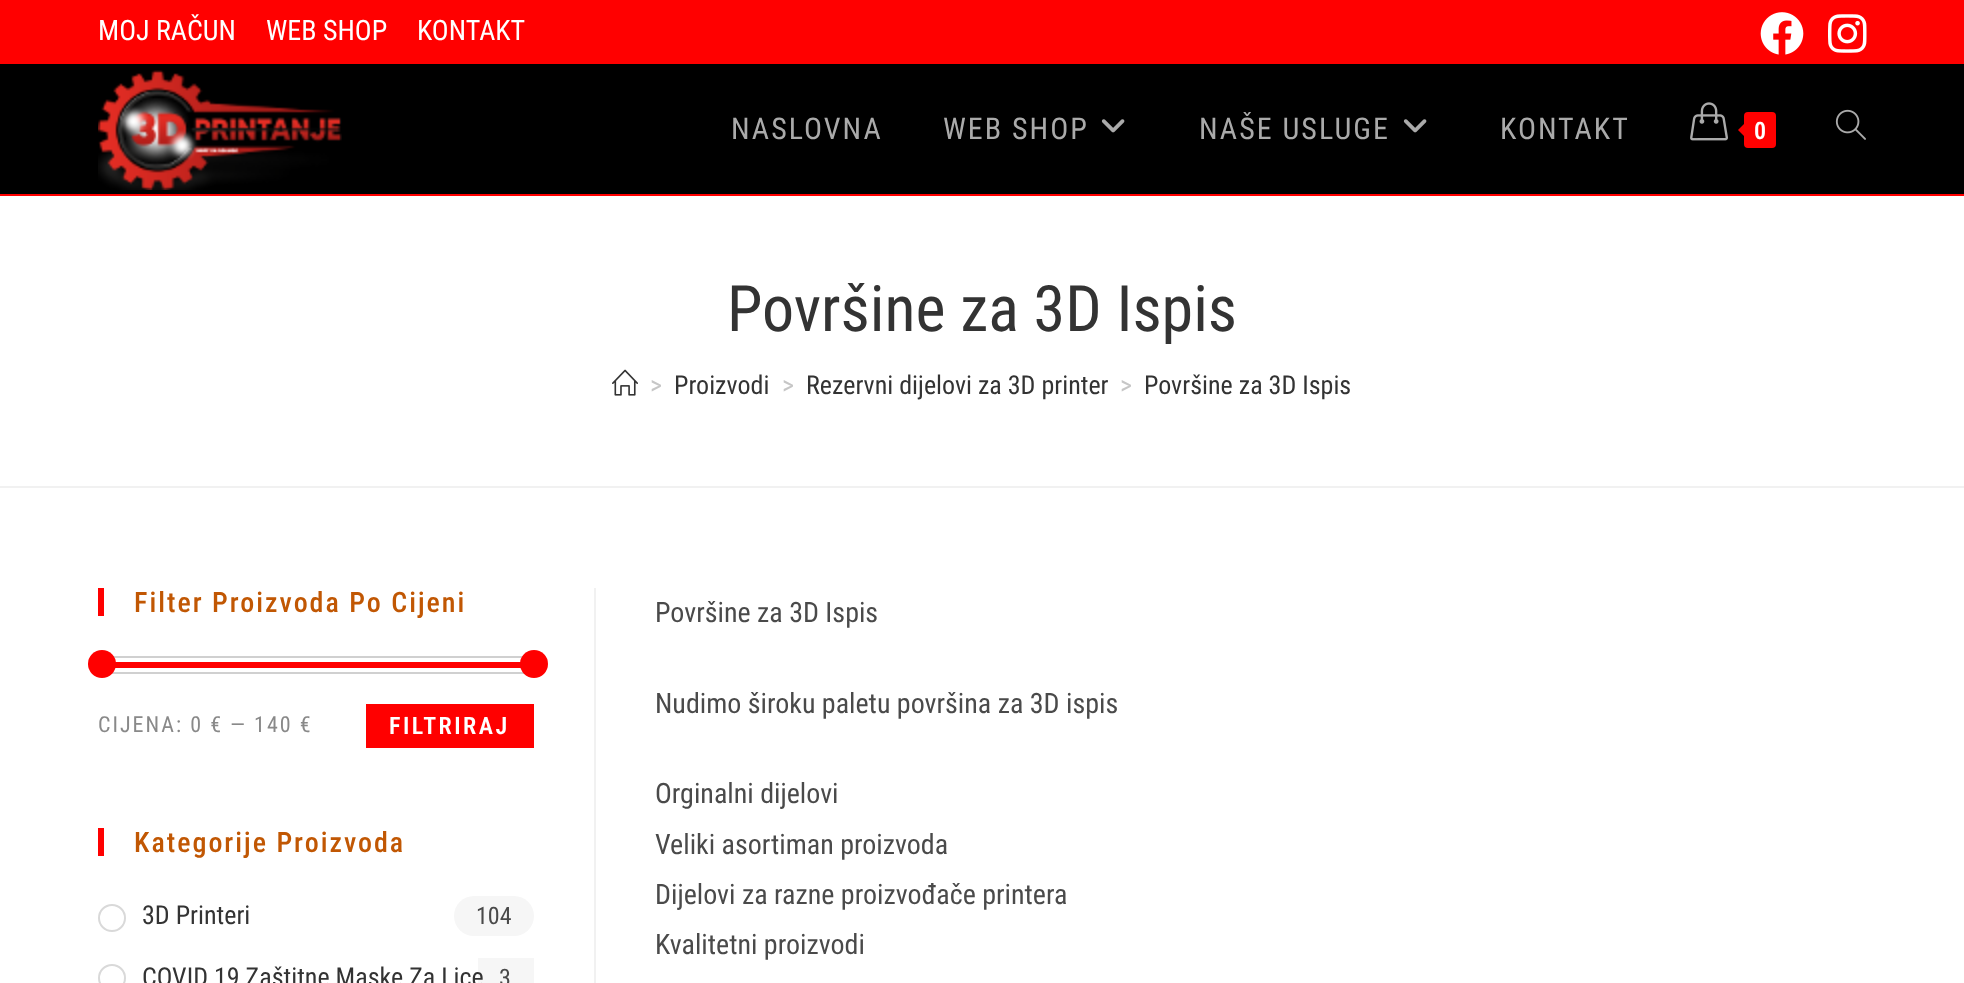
<svg xmlns="http://www.w3.org/2000/svg" xmlns:xlink="http://www.w3.org/1999/xlink" width="1964" height="983" viewBox="0 0 1964 983">
<style>
.cls-1{font:28px Roboto Condensed;fill:#ffffff}
.cls-2{font:30px Roboto Condensed;letter-spacing:2px;fill:#aaaaaa}
.cls-3{font:600 24px Roboto Condensed;fill:#ffffff}
.cls-4{font:64px Roboto Condensed;fill:#333333}
.cls-5{font:26px Roboto Condensed;fill:#c6c6c6}
.cls-6{font:26px Roboto Condensed;fill:#333333}
.cls-7{font:500 28px Roboto Condensed;letter-spacing:2px;fill:#c15703}
.cls-8{font:22px Roboto Condensed;letter-spacing:2px;fill:#898989}
.cls-9{font:600 24px Roboto Condensed;letter-spacing:2.5px;fill:#ffffff}
.cls-10{font:24px Roboto Condensed;fill:#4a4a4a}
.cls-11{font:28px Roboto Condensed;fill:#4a4a4a}
</style>
<rect width="100%" height="100%" fill="#ffffff"/>
<rect fill="#ff0000" x="0" y="0" width="1964" height="64"/>
<image xlink:href="image0.png" x="1760" y="12" width="44" height="43"/>
<image xlink:href="image1.png" x="1828" y="14" width="39" height="39"/>
<rect fill="#000000" x="0" y="64" width="1964" height="130"/>
<rect fill="#ff0000" x="0" y="194" width="1964" height="2"/>
<image xlink:href="image2.png" x="98" y="70" width="244" height="120"/>
<image xlink:href="image3.png" x="1101" y="119" width="24" height="14"/>
<image xlink:href="image3.png" x="1403" y="119" width="24" height="14"/>
<image xlink:href="image4.png" x="1690" y="102" width="38" height="39"/>
<rect fill="#ff0000" x="1744" y="112" width="32" height="36" rx="4"/>
<path fill="#ff0000" d="M1748 120V140L1738 130Z"/>
<image xlink:href="image5.png" x="1835" y="109" width="31" height="31"/>
<rect fill="#f1f1f1" x="0" y="486" width="1964" height="2"/>
<image xlink:href="image6.png" x="612" y="369" width="26" height="27"/>
<rect fill="#ff0000" x="98" y="588" width="6" height="28"/>
<rect fill="none" stroke="#d0d0d0" stroke-width="2" x="99" y="657" width="434" height="16"/>
<rect fill="#ff0000" x="115" y="662" width="406" height="6"/>
<circle fill="#ff0000" cx="102" cy="664" r="14"/>
<circle fill="#ff0000" cx="534" cy="664" r="14"/>
<rect fill="#ff0000" x="366" y="704" width="168" height="44"/>
<rect fill="#ff0000" x="98" y="828" width="6" height="28"/>
<circle fill="none" stroke="#d9d9d9" stroke-width="2" cx="112" cy="918" r="13"/>
<rect fill="#f6f6f6" x="454" y="896" width="80" height="40" rx="20"/>
<circle fill="none" stroke="#d9d9d9" stroke-width="2" cx="112" cy="978" r="13"/>
<rect fill="#545454" fill-opacity="0.05" x="478" y="958" width="56" height="25"/>
<rect fill="#f1f1f1" x="594" y="588" width="2" height="395"/>
<text class="cls-1" x="98" y="40">MOJ RAČUN</text>
<text class="cls-1" x="266" y="40">WEB SHOP</text>
<text class="cls-1" x="417" y="40">KONTAKT</text>
<text class="cls-2" x="731" y="139">NASLOVNA</text>
<text class="cls-2" x="943" y="139">WEB SHOP</text>
<text class="cls-2" x="1199" y="139">NAŠE USLUGE</text>
<text class="cls-2" x="1500" y="139">KONTAKT</text>
<text class="cls-3" x="1754" y="139">0</text>
<text class="cls-4" x="727" y="331">Površine za 3D Ispis</text>
<text class="cls-5" x="650" y="394">&gt;</text>
<text class="cls-6" x="674" y="394">Proizvodi</text>
<text class="cls-5" x="782" y="394">&gt;</text>
<text class="cls-6" x="806" y="394">Rezervni dijelovi za 3D printer</text>
<text class="cls-5" x="1120" y="394">&gt;</text>
<text class="cls-6" x="1144" y="394">Površine za 3D Ispis</text>
<text class="cls-7" x="134" y="612">Filter Proizvoda Po Cijeni</text>
<text class="cls-8" x="98" y="732">CIJENA: 0 € — 140 €</text>
<text class="cls-9" x="389" y="734">FILTRIRAJ</text>
<text class="cls-7" x="134" y="852">Kategorije Proizvoda</text>
<text class="cls-6" x="142" y="924">3D Printeri</text>
<text class="cls-10" x="476" y="924">104</text>
<text class="cls-6" x="142" y="986">COVID 19 Zaštitne Maske Za Lice</text>
<text class="cls-10" x="499" y="986">3</text>
<text class="cls-11" x="655" y="622">Površine za 3D Ispis</text>
<text class="cls-11" x="655" y="713">Nudimo široku paletu površina za 3D ispis</text>
<text class="cls-11"><tspan x="655" y="803">Orginalni dijelovi</tspan><tspan x="655" y="854">Veliki asortiman proizvoda</tspan><tspan x="655" y="904">Dijelovi za razne proizvođače printera</tspan><tspan x="655" y="954">Kvalitetni proizvodi</tspan></text>
</svg>
